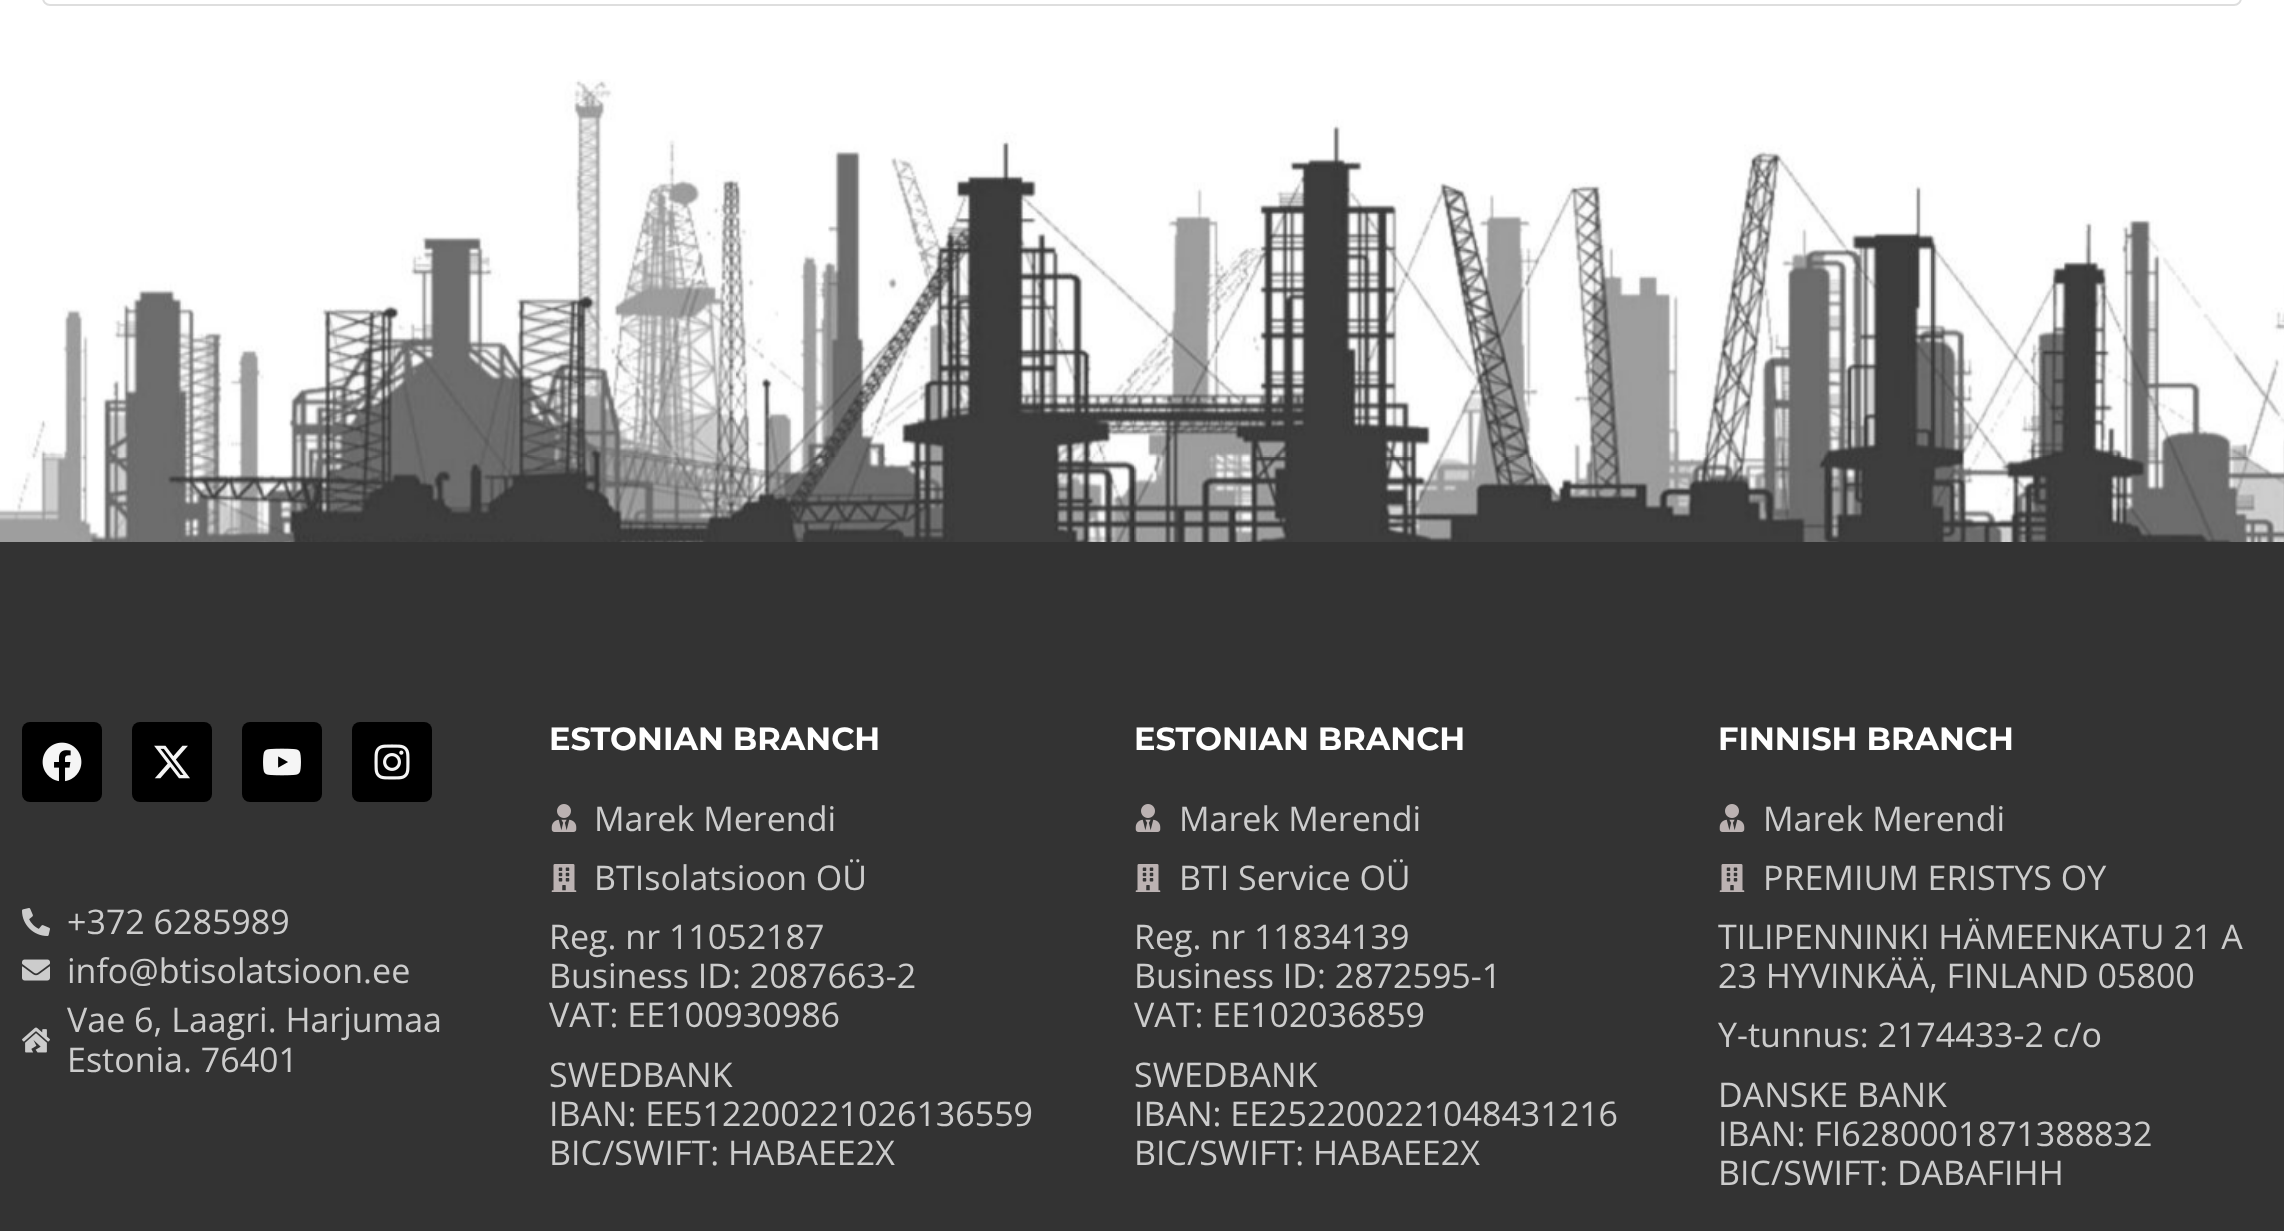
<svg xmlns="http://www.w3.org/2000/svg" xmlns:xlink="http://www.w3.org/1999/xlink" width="2284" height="1231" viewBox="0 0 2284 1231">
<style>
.cls-1{font:34px Open Sans;fill:#cccccc}
.cls-2{font:bold 32px Montserrat;fill:#ffffff}
</style>
<rect width="100%" height="100%" fill="#ffffff"/>
<rect fill="none" stroke="#dedede" stroke-width="2" x="43" y="-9" width="2198" height="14" rx="7"/>
<image xlink:href="image0.png" x="0" y="79" width="2284" height="463"/>
<rect fill="#333333" x="0" y="542" width="2284" height="689"/>
<rect fill="#000000" x="22" y="722" width="80" height="80" rx="8"/>
<image xlink:href="image1.png" x="42" y="742" width="40" height="40"/>
<rect fill="#000000" x="132" y="722" width="80" height="80" rx="8"/>
<image xlink:href="image2.png" x="154" y="745" width="36" height="34"/>
<rect fill="#000000" x="242" y="722" width="80" height="80" rx="8"/>
<image xlink:href="image3.png" x="263" y="748" width="38" height="28"/>
<rect fill="#000000" x="352" y="722" width="80" height="80" rx="8"/>
<image xlink:href="image4.png" x="374" y="744" width="36" height="36"/>
<image xlink:href="image5.png" x="22" y="908" width="28" height="28"/>
<image xlink:href="image6.png" x="22" y="959" width="28" height="22"/>
<image xlink:href="image7.png" x="22" y="1027" width="28" height="26"/>
<image xlink:href="image8.png" x="551" y="804" width="26" height="28"/>
<image xlink:href="image9.png" x="551" y="864" width="26" height="28"/>
<image xlink:href="image8.png" x="1135" y="804" width="26" height="28"/>
<image xlink:href="image9.png" x="1135" y="864" width="26" height="28"/>
<image xlink:href="image8.png" x="1719" y="804" width="26" height="28"/>
<image xlink:href="image9.png" x="1719" y="864" width="26" height="28"/>
<text class="cls-1"><tspan x="67" y="934">+372 6285989</tspan><tspan x="67" y="983">info@btisolatsioon.ee</tspan><tspan x="67" y="1032">Vae 6, Laagri. Harjumaa</tspan><tspan x="67" y="1072">Estonia. 76401</tspan></text>
<text class="cls-2" x="549" y="750">ESTONIAN BRANCH</text>
<text class="cls-1"><tspan x="594" y="831">Marek Merendi</tspan><tspan x="594" y="890">BTIsolatsioon OÜ</tspan></text>
<text class="cls-1"><tspan x="549" y="949">Reg. nr 11052187</tspan><tspan x="549" y="988">Business ID: 2087663-2</tspan><tspan x="549" y="1027">VAT: EE100930986</tspan><tspan x="549" y="1087">SWEDBANK</tspan><tspan x="549" y="1126">IBAN: EE512200221026136559</tspan><tspan x="549" y="1165">BIC/SWIFT: HABAEE2X</tspan></text>
<text class="cls-2" x="1134" y="750">ESTONIAN BRANCH</text>
<text class="cls-1"><tspan x="1179" y="831">Marek Merendi</tspan><tspan x="1179" y="890">BTI Service OÜ</tspan></text>
<text class="cls-1"><tspan x="1134" y="949">Reg. nr 11834139</tspan><tspan x="1134" y="988">Business ID: 2872595-1</tspan><tspan x="1134" y="1027">VAT: EE102036859</tspan><tspan x="1134" y="1087">SWEDBANK</tspan><tspan x="1134" y="1126">IBAN: EE252200221048431216</tspan><tspan x="1134" y="1165">BIC/SWIFT: HABAEE2X</tspan></text>
<text class="cls-2" x="1718" y="750">FINNISH BRANCH</text>
<text class="cls-1"><tspan x="1763" y="831">Marek Merendi</tspan><tspan x="1763" y="890">PREMIUM ERISTYS OY</tspan></text>
<text class="cls-1"><tspan x="1718" y="949">TILIPENNINKI HÄMEENKATU 21 A</tspan><tspan x="1718" y="988">23 HYVINKÄÄ, FINLAND 05800</tspan><tspan x="1718" y="1047">Y-tunnus: 2174433-2 c/o</tspan><tspan x="1718" y="1107">DANSKE BANK</tspan><tspan x="1718" y="1146">IBAN: FI6280001871388832</tspan><tspan x="1718" y="1185">BIC/SWIFT: DABAFIHH</tspan></text>
</svg>
